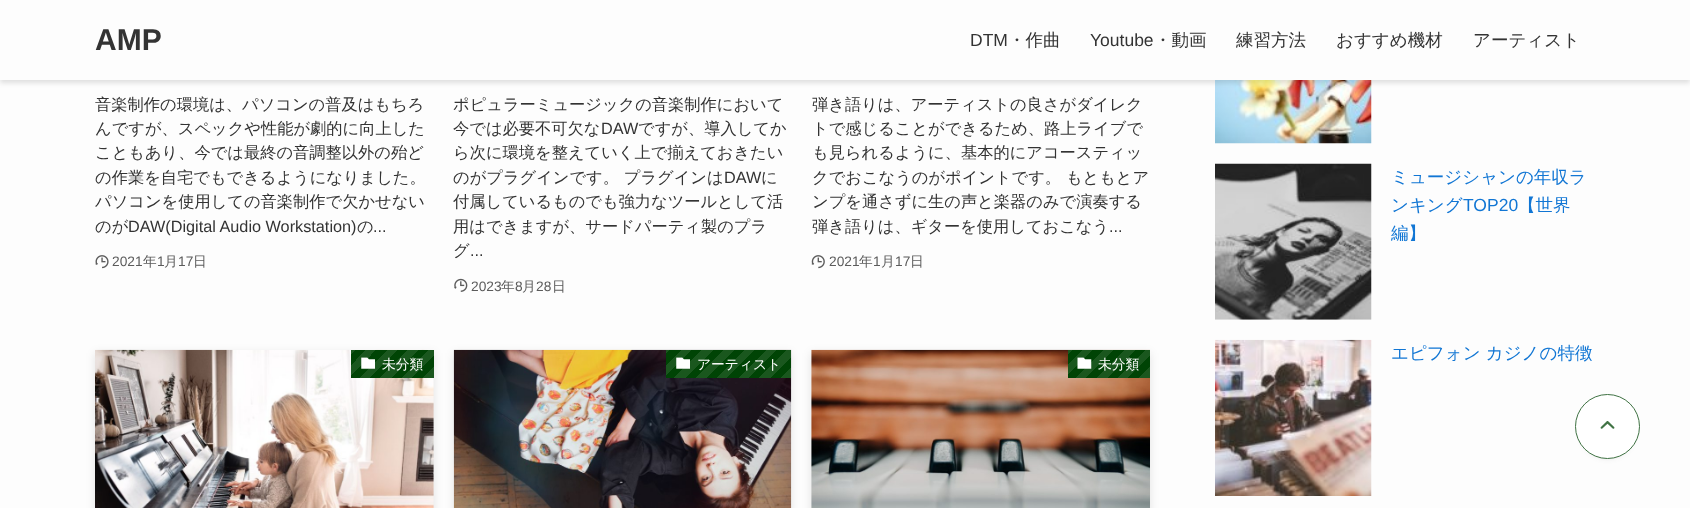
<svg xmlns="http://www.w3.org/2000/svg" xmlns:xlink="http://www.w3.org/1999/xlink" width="1690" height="508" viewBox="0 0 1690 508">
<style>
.cls-1{font:bold 30px Liberation Sans;fill:#333333}
.cls-2{font:17.5px Liberation Sans;fill:#333333}
.cls-3{font:500 17.5px WenQuanYi Zen Hei;fill:#333333}
.cls-4{font:500 16.25px WenQuanYi Zen Hei;fill:#333333}
.cls-5{font:16.25px Liberation Sans;fill:#333333}
.cls-6{font:13.75px Liberation Sans;fill:#5b5b5b}
.cls-7{font:500 13.75px WenQuanYi Zen Hei;fill:#5b5b5b}
.cls-8{font:500 13.75px WenQuanYi Zen Hei;fill:#ffffff}
.cls-9{font:500 17.5px WenQuanYi Zen Hei;fill:#1176d4}
.cls-10{font:17.5px Liberation Sans;fill:#1176d4}
</style>
<defs>
<linearGradient id="g1" gradientUnits="userSpaceOnUse" x1="420" y1="391" x2="356" y2="328"><stop offset="0" stop-color="#1a571e"/><stop offset="0.08" stop-color="#1a571e"/><stop offset="0.08" stop-color="#004405"/><stop offset="0.17" stop-color="#004405"/><stop offset="0.17" stop-color="#1a571e"/><stop offset="0.25" stop-color="#1a571e"/><stop offset="0.25" stop-color="#004405"/><stop offset="0.33" stop-color="#004405"/><stop offset="0.33" stop-color="#1a571e"/><stop offset="0.42" stop-color="#1a571e"/><stop offset="0.42" stop-color="#004405"/><stop offset="0.5" stop-color="#004405"/><stop offset="0.5" stop-color="#1a571e"/><stop offset="0.58" stop-color="#1a571e"/><stop offset="0.58" stop-color="#004405"/><stop offset="0.67" stop-color="#004405"/><stop offset="0.67" stop-color="#1a571e"/><stop offset="0.75" stop-color="#1a571e"/><stop offset="0.75" stop-color="#004405"/><stop offset="0.83" stop-color="#004405"/><stop offset="0.83" stop-color="#1a571e"/><stop offset="0.92" stop-color="#1a571e"/><stop offset="0.92" stop-color="#004405"/><stop offset="1" stop-color="#004405"/></linearGradient>
<linearGradient id="g2" gradientUnits="userSpaceOnUse" x1="767" y1="402" x2="682" y2="317"><stop offset="0" stop-color="#1a571e"/><stop offset="0.06" stop-color="#1a571e"/><stop offset="0.06" stop-color="#004405"/><stop offset="0.12" stop-color="#004405"/><stop offset="0.12" stop-color="#1a571e"/><stop offset="0.19" stop-color="#1a571e"/><stop offset="0.19" stop-color="#004405"/><stop offset="0.25" stop-color="#004405"/><stop offset="0.25" stop-color="#1a571e"/><stop offset="0.31" stop-color="#1a571e"/><stop offset="0.31" stop-color="#004405"/><stop offset="0.38" stop-color="#004405"/><stop offset="0.38" stop-color="#1a571e"/><stop offset="0.44" stop-color="#1a571e"/><stop offset="0.44" stop-color="#004405"/><stop offset="0.5" stop-color="#004405"/><stop offset="0.5" stop-color="#1a571e"/><stop offset="0.56" stop-color="#1a571e"/><stop offset="0.56" stop-color="#004405"/><stop offset="0.62" stop-color="#004405"/><stop offset="0.62" stop-color="#1a571e"/><stop offset="0.69" stop-color="#1a571e"/><stop offset="0.69" stop-color="#004405"/><stop offset="0.75" stop-color="#004405"/><stop offset="0.75" stop-color="#1a571e"/><stop offset="0.81" stop-color="#1a571e"/><stop offset="0.81" stop-color="#004405"/><stop offset="0.88" stop-color="#004405"/><stop offset="0.88" stop-color="#1a571e"/><stop offset="0.94" stop-color="#1a571e"/><stop offset="0.94" stop-color="#004405"/><stop offset="1" stop-color="#004405"/></linearGradient>
<linearGradient id="g3" gradientUnits="userSpaceOnUse" x1="1136" y1="391" x2="1073" y2="328"><stop offset="0" stop-color="#1a571e"/><stop offset="0.08" stop-color="#1a571e"/><stop offset="0.08" stop-color="#004405"/><stop offset="0.17" stop-color="#004405"/><stop offset="0.17" stop-color="#1a571e"/><stop offset="0.25" stop-color="#1a571e"/><stop offset="0.25" stop-color="#004405"/><stop offset="0.33" stop-color="#004405"/><stop offset="0.33" stop-color="#1a571e"/><stop offset="0.42" stop-color="#1a571e"/><stop offset="0.42" stop-color="#004405"/><stop offset="0.5" stop-color="#004405"/><stop offset="0.5" stop-color="#1a571e"/><stop offset="0.58" stop-color="#1a571e"/><stop offset="0.58" stop-color="#004405"/><stop offset="0.67" stop-color="#004405"/><stop offset="0.67" stop-color="#1a571e"/><stop offset="0.75" stop-color="#1a571e"/><stop offset="0.75" stop-color="#004405"/><stop offset="0.83" stop-color="#004405"/><stop offset="0.83" stop-color="#1a571e"/><stop offset="0.92" stop-color="#1a571e"/><stop offset="0.92" stop-color="#004405"/><stop offset="1" stop-color="#004405"/></linearGradient>
</defs>
<rect width="100%" height="100%" fill="#fdfdfd"/>
<image xlink:href="image9.png" x="1215" y="80" width="157" height="64"/>
<rect fill="#000000" fill-opacity="0.12" filter="blur(2.5px)" x="0" y="3" width="1690" height="80"/>
<rect fill="#fdfdfd" x="0" y="0" width="1690" height="80"/>
<image xlink:href="image0.png" x="95" y="255" width="14" height="14"/>
<image xlink:href="image1.png" x="454" y="278" width="14" height="14"/>
<image xlink:href="image2.png" x="811" y="255" width="14" height="14"/>
<rect fill="#000000" fill-opacity="0.1" filter="blur(5px)" x="95" y="353" width="339" height="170"/>
<image xlink:href="image3.png" x="95" y="349" width="339" height="159"/>
<rect fill="url(#g1)" x="351" y="350" width="83" height="28"/>
<image xlink:href="image4.png" x="361" y="357" width="14" height="12"/>
<rect fill="#000000" fill-opacity="0.1" filter="blur(5px)" x="454" y="353" width="337" height="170"/>
<image xlink:href="image5.png" x="453" y="349" width="339" height="159"/>
<rect fill="url(#g2)" x="666" y="350" width="125" height="28"/>
<image xlink:href="image6.png" x="676" y="357" width="14" height="12"/>
<rect fill="#000000" fill-opacity="0.1" filter="blur(5px)" x="811" y="353" width="339" height="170"/>
<image xlink:href="image7.png" x="811" y="349" width="339" height="159"/>
<rect fill="url(#g3)" x="1068" y="350" width="82" height="28"/>
<image xlink:href="image8.png" x="1077" y="357" width="15" height="12"/>
<image xlink:href="image10.png" x="1215" y="163" width="157" height="157"/>
<image xlink:href="image11.png" x="1215" y="339" width="157" height="157"/>
<rect fill="#3f3f3f" fill-opacity="0.1" filter="blur(2.5px)" x="1580" y="404" width="55" height="55" rx="27.5"/>
<circle fill="#ffffff" stroke="#3f7243" cx="1607.5" cy="426.5" r="32"/>
<image xlink:href="image12.png" x="1600" y="421" width="15" height="8"/>
<text class="cls-1" x="95" y="50">AMP</text>
<text class="cls-2" x="970" y="46">DTM</text>
<text class="cls-3" x="1008" y="46">・作曲</text>
<text class="cls-2" x="1090" y="46">Youtube</text>
<text class="cls-3" x="1154" y="46">・動画</text>
<text class="cls-3" x="1236" y="46">練習方法</text>
<text class="cls-3" x="1336" y="46">おすすめ機材</text>
<text class="cls-3" x="1473" y="46">アーティスト</text>
<text class="cls-4"><tspan x="95" y="110">音楽制作の環境は、パソコンの普及はもちろ</tspan><tspan x="95" y="134">んですが、スペックや性能が劇的に向上した</tspan><tspan x="95" y="158">こともあり、今では最終の音調整以外の殆ど</tspan><tspan x="95" y="183">の作業を自宅でもできるようになりました。</tspan><tspan x="95" y="207">パソコンを使用しての音楽制作で欠かせない</tspan><tspan x="95" y="232">のが</tspan></text>
<text class="cls-5" x="128" y="232">DAW(Digital Audio Workstation)</text>
<text class="cls-4" x="357" y="232">の</text>
<text class="cls-5" x="373" y="232">...</text>
<text class="cls-6" x="112" y="266">2021</text>
<text class="cls-7" x="143" y="266">年</text>
<text class="cls-6" x="157" y="266">1</text>
<text class="cls-7" x="164" y="266">月</text>
<text class="cls-6" x="178" y="266">17</text>
<text class="cls-7" x="193" y="266">日</text>
<text class="cls-4"><tspan x="453" y="110">ポピュラーミュージックの音楽制作において</tspan><tspan x="453" y="134">今では必要不可欠な</tspan></text>
<text class="cls-5" x="601" y="134">DAW</text>
<text class="cls-4" x="638" y="134">ですが、導入してか</text>
<text class="cls-4"><tspan x="453" y="158">ら次に環境を整えていく上で揃えておきたい</tspan><tspan x="453" y="183">のがプラグインです。 プラグインは</tspan></text>
<text class="cls-5" x="724" y="183">DAW</text>
<text class="cls-4" x="761" y="183">に</text>
<text class="cls-4"><tspan x="453" y="207">付属しているものでも強力なツールとして活</tspan><tspan x="453" y="232">用はできますが、サードパーティ製のプラ</tspan><tspan x="453" y="256">グ</tspan></text>
<text class="cls-5" x="470" y="256">...</text>
<text class="cls-6" x="471" y="291">2023</text>
<text class="cls-7" x="501" y="291">年</text>
<text class="cls-6" x="515" y="291">8</text>
<text class="cls-7" x="522" y="291">月</text>
<text class="cls-6" x="536" y="291">28</text>
<text class="cls-7" x="552" y="291">日</text>
<text class="cls-4"><tspan x="812" y="110">弾き語りは、アーティストの良さがダイレク</tspan><tspan x="812" y="134">トで感じることができるため、路上ライブで</tspan><tspan x="812" y="158">も見られるように、基本的にアコースティッ</tspan><tspan x="812" y="183">クでおこなうのがポイントです。 もともとア</tspan><tspan x="812" y="207">ンプを通さずに生の声と楽器のみで演奏する</tspan><tspan x="812" y="232">弾き語りは、ギターを使用しておこなう</tspan></text>
<text class="cls-5" x="1109" y="232">...</text>
<text class="cls-6" x="829" y="266">2021</text>
<text class="cls-7" x="859" y="266">年</text>
<text class="cls-6" x="873" y="266">1</text>
<text class="cls-7" x="881" y="266">月</text>
<text class="cls-6" x="895" y="266">17</text>
<text class="cls-7" x="910" y="266">日</text>
<text class="cls-8" x="382" y="369">未分類</text>
<text class="cls-8" x="697" y="369">アーティスト</text>
<text class="cls-8" x="1098" y="369">未分類</text>
<text class="cls-9"><tspan x="1391" y="183">ミュージシャンの年収ラ</tspan><tspan x="1391" y="211">ンキング</tspan></text>
<text class="cls-10" x="1463" y="211">TOP20</text>
<text class="cls-9" x="1518" y="211">【世界</text>
<text class="cls-9" x="1391" y="239">編】</text>
<text class="cls-9" x="1391" y="359">エピフォン カジノの特徴</text>
</svg>
